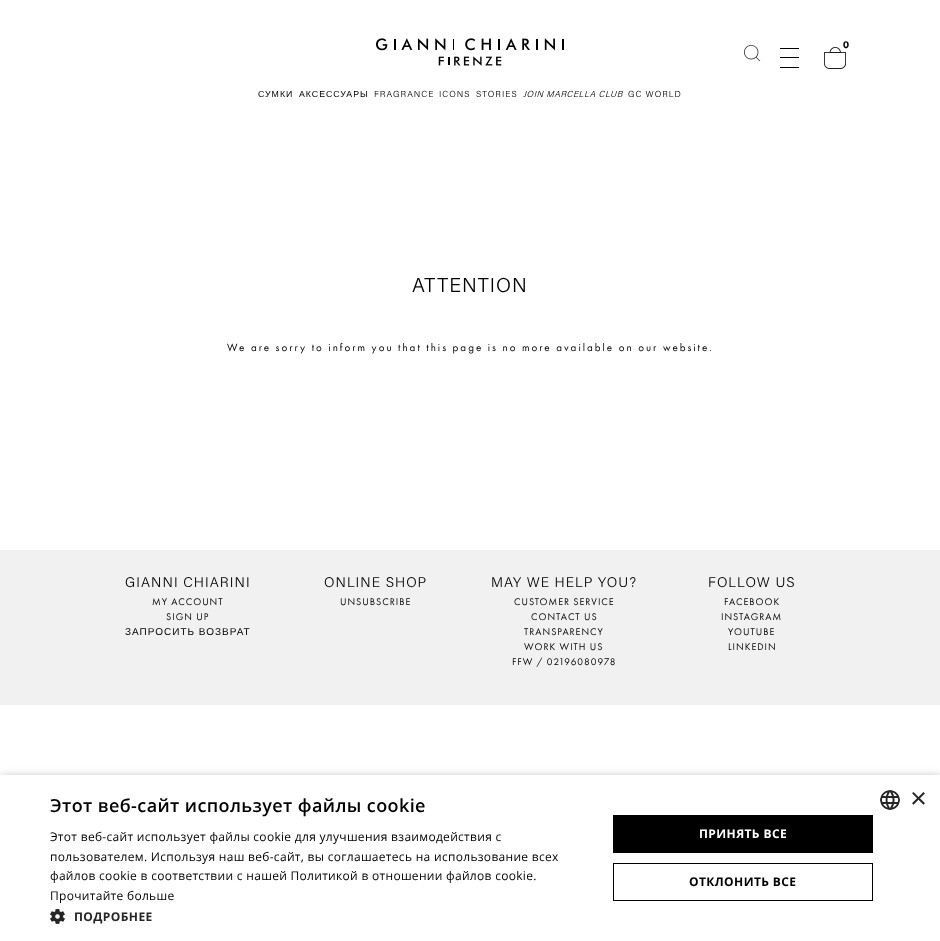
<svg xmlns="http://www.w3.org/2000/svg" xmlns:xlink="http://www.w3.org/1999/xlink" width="940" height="941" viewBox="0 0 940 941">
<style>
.cls-1{font:900 10px Futura PT;letter-spacing:1px;fill:#000000}
.cls-2{font:8.75px Liberation Sans;letter-spacing:1px;fill:#000000}
.cls-3{font:300 8.75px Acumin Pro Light;letter-spacing:1px;fill:#000000}
.cls-4{font:italic 300 8.75px Acumin Pro Light;letter-spacing:0.5px;fill:#000000}
.cls-5{font:300 20px Acumin Pro Light;letter-spacing:1px;fill:#000000}
.cls-6{font:11px Futura PT;letter-spacing:2px;fill:#000000}
.cls-7{font:300 14px Acumin Pro Light;letter-spacing:1px;fill:#000000}
.cls-8{font:10px Futura PT;letter-spacing:1px;fill:#000000}
.cls-9{font:10px Liberation Sans;letter-spacing:1px;fill:#000000}
.cls-10{font:600 18px Open Sans;letter-spacing:0.4px;fill:#000000}
.cls-11{font:12px Open Sans;letter-spacing:0.3px;fill:#000000}
.cls-12{font:bold 12px Open Sans;letter-spacing:0.4px;fill:#262626}
.cls-13{font:bold 12px Open Sans;letter-spacing:0.4px;fill:#ffffff}
.cls-14{font:bold 12px Open Sans;letter-spacing:0.4px;fill:#000000}
.cls-15{font:29px Liberation Sans;fill:#262626}
</style>
<rect width="100%" height="100%" fill="#ffffff"/>
<image xlink:href="image0.png" x="376" y="38" width="188" height="28"/>
<image xlink:href="image1.png" x="744" y="45" width="17" height="16"/>
<rect fill="#000000" x="780" y="48" width="19" height="1"/>
<rect fill="#000000" x="780" y="57" width="19" height="1"/>
<rect fill="#000000" x="780" y="67" width="19" height="1"/>
<image xlink:href="image2.png" x="824" y="47" width="22" height="22"/>
<rect fill="#f1f1f1" x="0" y="550" width="940" height="155"/>
<rect fill="#000000" fill-opacity="0.35" filter="blur(4px)" x="1" y="777" width="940" height="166"/>
<rect fill="#ffffff" x="0" y="775" width="940" height="166"/>
<image xlink:href="image3.png" x="50" y="909" width="15" height="15"/>
<rect fill="#000000" x="613" y="815" width="260" height="38"/>
<rect fill="none" stroke="#000000" x="613.5" y="863.5" width="259" height="37"/>
<image xlink:href="image4.png" x="880" y="790" width="20" height="20"/>
<text class="cls-1" x="843" y="48">0</text>
<text class="cls-2" x="258" y="97">СУМКИ</text>
<text class="cls-2" x="299" y="97">АКСЕССУАРЫ</text>
<text class="cls-3" x="374" y="97">FRAGRANCE</text>
<text class="cls-3" x="439" y="97">ICONS</text>
<text class="cls-3" x="476" y="97">STORIES</text>
<text class="cls-4" x="523" y="97">JOIN MARCELLA CLUB</text>
<text class="cls-3" x="628" y="97">GC WORLD</text>
<text class="cls-5" x="412" y="292">ATTENTION</text>
<text class="cls-6" x="227" y="351">We are sorry to inform you that this page is no more available on our website.</text>
<text class="cls-7" x="125" y="587">GIANNI CHIARINI</text>
<text class="cls-8" x="152" y="605">MY ACCOUNT</text>
<text class="cls-8" x="166" y="620">SIGN UP</text>
<text class="cls-9" x="125" y="635">ЗАПРОСИТЬ ВОЗВРАТ</text>
<text class="cls-7" x="324" y="587">ONLINE SHOP</text>
<text class="cls-8" x="340" y="605">UNSUBSCRIBE</text>
<text class="cls-7" x="491" y="587">MAY WE HELP YOU?</text>
<text class="cls-8" x="514" y="605">CUSTOMER SERVICE</text>
<text class="cls-8" x="531" y="620">CONTACT US</text>
<text class="cls-8"><tspan x="524" y="635">TRANSPARENCY</tspan><tspan x="524" y="650">WORK WITH US</tspan></text>
<text class="cls-8" x="512" y="665">FFW / 02196080978</text>
<text class="cls-7" x="708" y="587">FOLLOW US</text>
<text class="cls-8" x="724" y="605">FACEBOOK</text>
<text class="cls-8" x="721" y="620">INSTAGRAM</text>
<text class="cls-8"><tspan x="728" y="635">YOUTUBE</tspan><tspan x="728" y="650">LINKEDIN</tspan></text>
<text class="cls-10" x="50" y="812">Этот веб-сайт использует файлы cookie</text>
<text class="cls-11"><tspan x="50" y="841">Этот веб-сайт использует файлы cookie для улучшения взаимодействия с</tspan><tspan x="50" y="861">пользователем. Используя наш веб-сайт, вы соглашаетесь на использование всех</tspan><tspan x="50" y="880">файлов cookie в соответствии с нашей Политикой в отношении файлов cookie.</tspan><tspan x="50" y="900">Прочитайте больше</tspan></text>
<text class="cls-12" x="74" y="921">ПОДРОБНЕЕ</text>
<text class="cls-13" x="699" y="838">ПРИНЯТЬ ВСЕ</text>
<text class="cls-14" x="689" y="886">ОТКЛОНИТЬ ВСЕ</text>
<text class="cls-15" x="910" y="808">×</text>
</svg>
